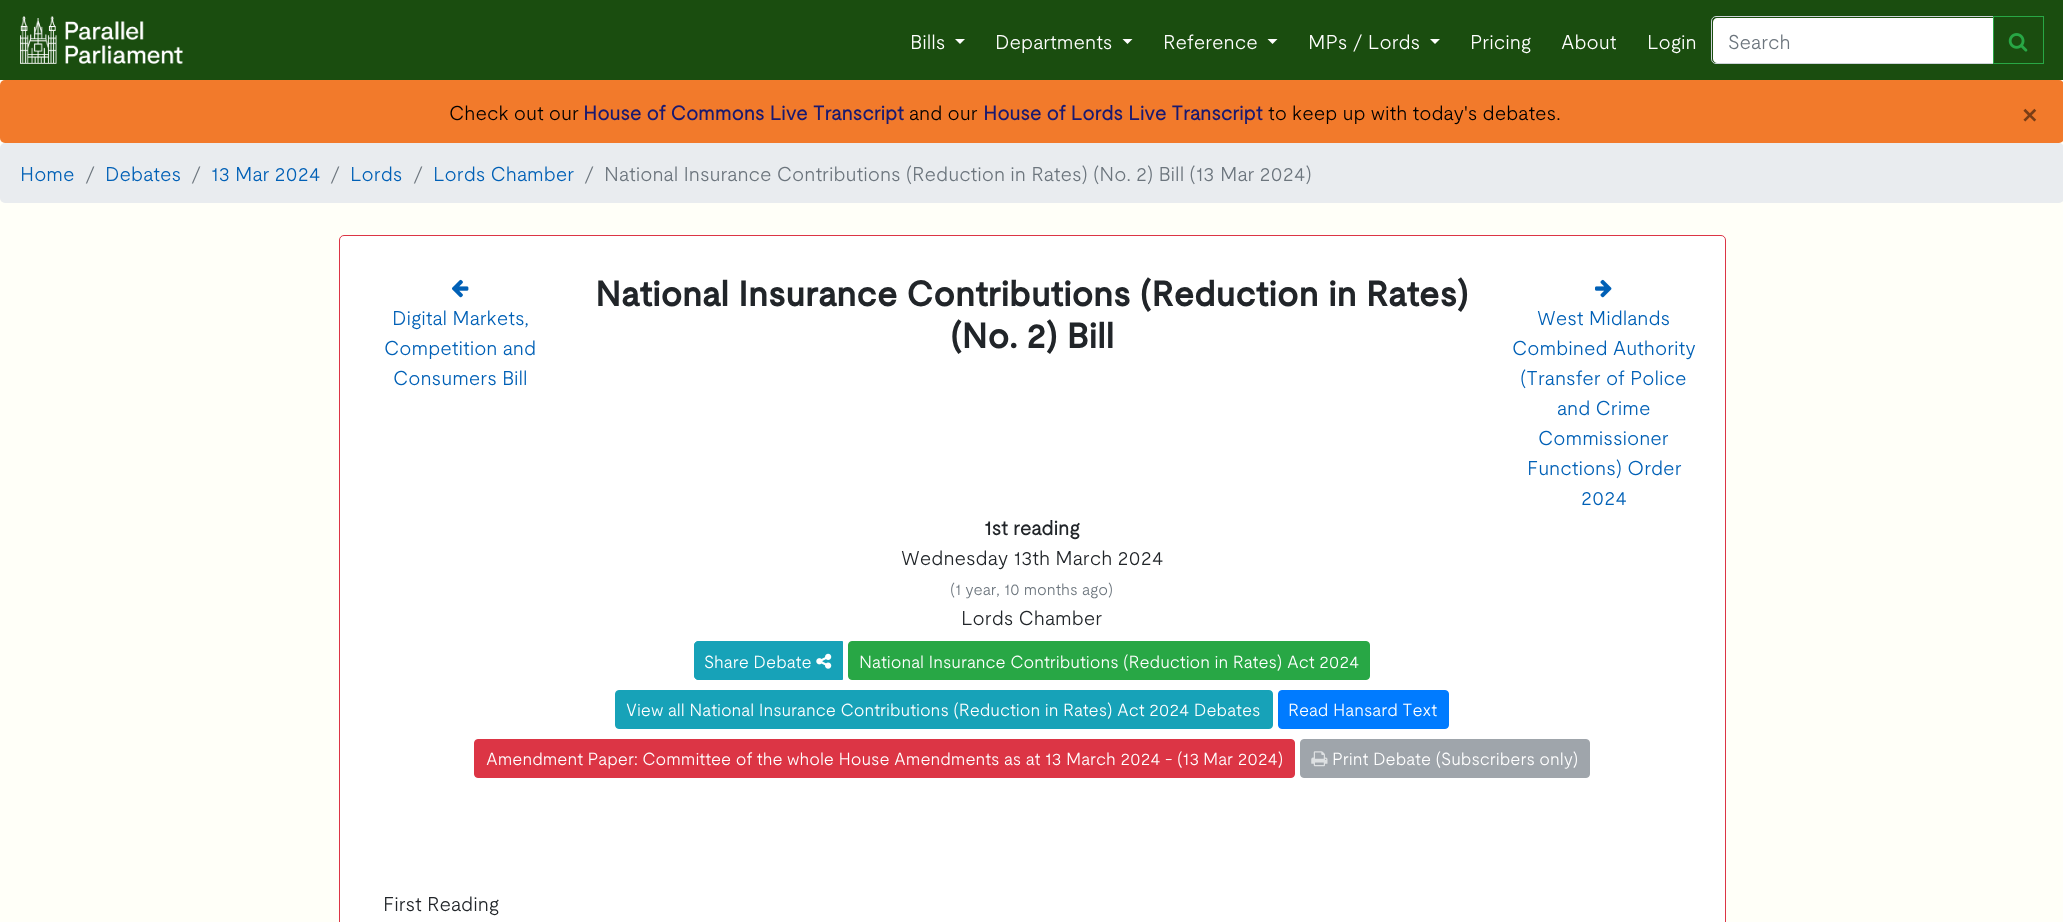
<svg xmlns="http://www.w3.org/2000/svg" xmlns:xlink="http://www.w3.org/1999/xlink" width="2063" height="922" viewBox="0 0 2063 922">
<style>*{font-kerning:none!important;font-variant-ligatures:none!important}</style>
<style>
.cls-1{font:300 20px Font;fill:#ffffff}
.cls-2{font:300 20px Font;fill:#6c757d}
.cls-3{font:300 20px Font;fill:#000000}
.cls-4{font:bold 20px Font;fill:#191970}
.cls-5{font:bold 30px Font;fill:#793d16}
.cls-6{font:300 20px Font;fill:#0060b6}
.cls-7{font:bold 35px 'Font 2';fill:#212529}
.cls-8{font:bold 20px Font;fill:#212529}
.cls-9{font:300 20px Font;fill:#212529}
.cls-10{font:300 16px Font;fill:#6c757d}
.cls-11{font:300 17.5px Font;fill:#ffffff}
</style>
<rect width="100%" height="100%" fill="#fffff8"/>
<rect fill="#1a4d0f" x="0" y="0" width="2063" height="80"/>
<image xlink:href="image0.png" x="20" y="16" width="163" height="48"/>
<path fill="#ffffff" d="M955 39H965L960 44Z"/>
<path fill="#ffffff" d="M1122.5 39H1132.5L1127.5 44Z"/>
<path fill="#ffffff" d="M1267.5 39H1277.5L1272.5 44Z"/>
<path fill="#ffffff" d="M1430 39H1440L1435 44Z"/>
<path fill="#ffffff" d="M1717 18H1993V63H1717C1715 63 1713 61 1713 59V22C1713 20 1715 18 1717 18Z"/>
<path fill="none" stroke="#ced4da" d="M1716 16.5H1993.5V63.5H1716C1713.5 63.5 1711.5 61.5 1711.5 59V21C1711.5 18.5 1713.5 16.5 1716 16.5Z"/>
<rect fill="none" stroke="#28a745" x="1993.5" y="16.5" width="50" height="47"/>
<image xlink:href="image1.png" x="2008" y="33" width="20" height="19"/>
<rect fill="#f27a2b" x="0" y="80" width="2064" height="63" rx="5"/>
<rect fill="#e9ecef" x="0" y="143" width="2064" height="60" rx="5"/>
<rect fill="#ffffff" stroke="#dc3545" x="339.5" y="235.5" width="1386" height="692" rx="4.5"/>
<image xlink:href="image2.png" x="452" y="279" width="17" height="19"/>
<image xlink:href="image3.png" x="1595" y="279" width="17" height="19"/>
<path fill="#17a2b8" stroke="#17a2b8" d="M698 641.5H842.5V679.5H698C696 679.5 694.5 678 694.5 676V645C694.5 643 696 641.5 698 641.5Z"/>
<image xlink:href="image4.png" x="816" y="653" width="16" height="16"/>
<rect fill="#28a745" stroke="#28a745" x="848.5" y="641.5" width="521" height="38" rx="3.5"/>
<rect fill="#17a2b8" stroke="#17a2b8" x="615.5" y="690.5" width="657" height="38" rx="3.5"/>
<rect fill="#007bff" stroke="#007bff" x="1278.5" y="690.5" width="170" height="38" rx="3.5"/>
<rect fill="#dc3545" stroke="#dc3545" x="474.5" y="739.5" width="820" height="38" rx="3.5"/>
<rect fill="#9fa5ab" stroke="#9fa5ab" x="1300.5" y="739.5" width="289" height="38" rx="3.5"/>
<image xlink:href="image5.png" x="1311" y="751" width="17" height="16"/>
<text class="cls-1" x="910" y="49">Bills</text>
<text class="cls-1" x="995" y="49">Departments</text>
<text class="cls-1" x="1163" y="49">Reference</text>
<text class="cls-1" x="1308" y="49">MPs / Lords</text>
<text class="cls-1" x="1470" y="49">Pricing</text>
<text class="cls-1" x="1561" y="49">About</text>
<text class="cls-1" x="1647" y="49">Login</text>
<text class="cls-2" x="1728" y="49">Search</text>
<text class="cls-3" x="449" y="120">Check out our</text>
<text class="cls-4" x="583" y="120">House of Commons Live Transcript</text>
<text class="cls-3" x="909" y="120">and our</text>
<text class="cls-4" x="983" y="120">House of Lords Live Transcript</text>
<text class="cls-3" x="1268" y="120">to keep up with today's debates.</text>
<text class="cls-5" x="2021" y="124">×</text>
<text class="cls-6" x="20" y="181">Home</text>
<text class="cls-2" x="85" y="181">/</text>
<text class="cls-6" x="105" y="181">Debates</text>
<text class="cls-2" x="191" y="181">/</text>
<text class="cls-6" x="211" y="181">13 Mar 2024</text>
<text class="cls-2" x="330" y="181">/</text>
<text class="cls-6" x="350" y="181">Lords</text>
<text class="cls-2" x="413" y="181">/</text>
<text class="cls-6" x="433" y="181">Lords Chamber</text>
<text class="cls-2" x="584" y="181">/</text>
<text class="cls-2" x="604" y="181">National Insurance Contributions (Reduction in Rates)</text>
<text class="cls-2" x="1093" y="181">(No. 2) Bill (13</text>
<text class="cls-2" x="1220" y="181">Mar 2024)</text>
<text class="cls-6" x="392" y="325">Digital Markets,</text>
<text class="cls-6" x="384" y="355">Competition and</text>
<text class="cls-6" x="393" y="385">Consumers Bill</text>
<text class="cls-7" x="595" y="306">National Insurance Contributions (Reduction</text>
<text class="cls-7" x="1328" y="306">in Rates)</text>
<text class="cls-7" x="950" y="348">(No. 2) Bill</text>
<text class="cls-6" x="1537" y="325">West Midlands</text>
<text class="cls-6" x="1512" y="355">Combined Authority</text>
<text class="cls-6" x="1520" y="385">(Transfer of</text>
<text class="cls-6" x="1630" y="385">Police</text>
<text class="cls-6" x="1557" y="415">and Crime</text>
<text class="cls-6" x="1538" y="445">Commissioner</text>
<text class="cls-6" x="1527" y="475">Functions) Order</text>
<text class="cls-6" x="1581" y="505">2024</text>
<text class="cls-8" x="984" y="535">1st reading</text>
<text class="cls-9" x="901" y="565">Wednesday 13th March 2024</text>
<text class="cls-10" x="950" y="595">(1 year, 10 months</text>
<text class="cls-10" x="1082" y="595">ago)</text>
<text class="cls-9" x="961" y="625">Lords Chamber</text>
<text class="cls-11" x="704" y="668">Share Debate</text>
<text class="cls-11" x="859" y="668">National Insurance Contributions (Reduction in Rates)</text>
<text class="cls-11" x="1287" y="668">Act 2024</text>
<text class="cls-11" x="626" y="716">View all National Insurance Contributions (Reduction in Rates)</text>
<text class="cls-11" x="1117" y="716">Act 2024 Debates</text>
<text class="cls-11" x="1288" y="716">Read Hansard Text</text>
<text class="cls-11" x="486" y="765">Amendment Paper: Committee of the whole House Amendments as at 13 March 2024 - (13</text>
<text class="cls-11" x="1203" y="765">Mar 2024)</text>
<text class="cls-11" x="1332" y="765">Print Debate (Subscribers only)</text>
<text class="cls-9" x="383" y="911">First Reading</text>
</svg>
